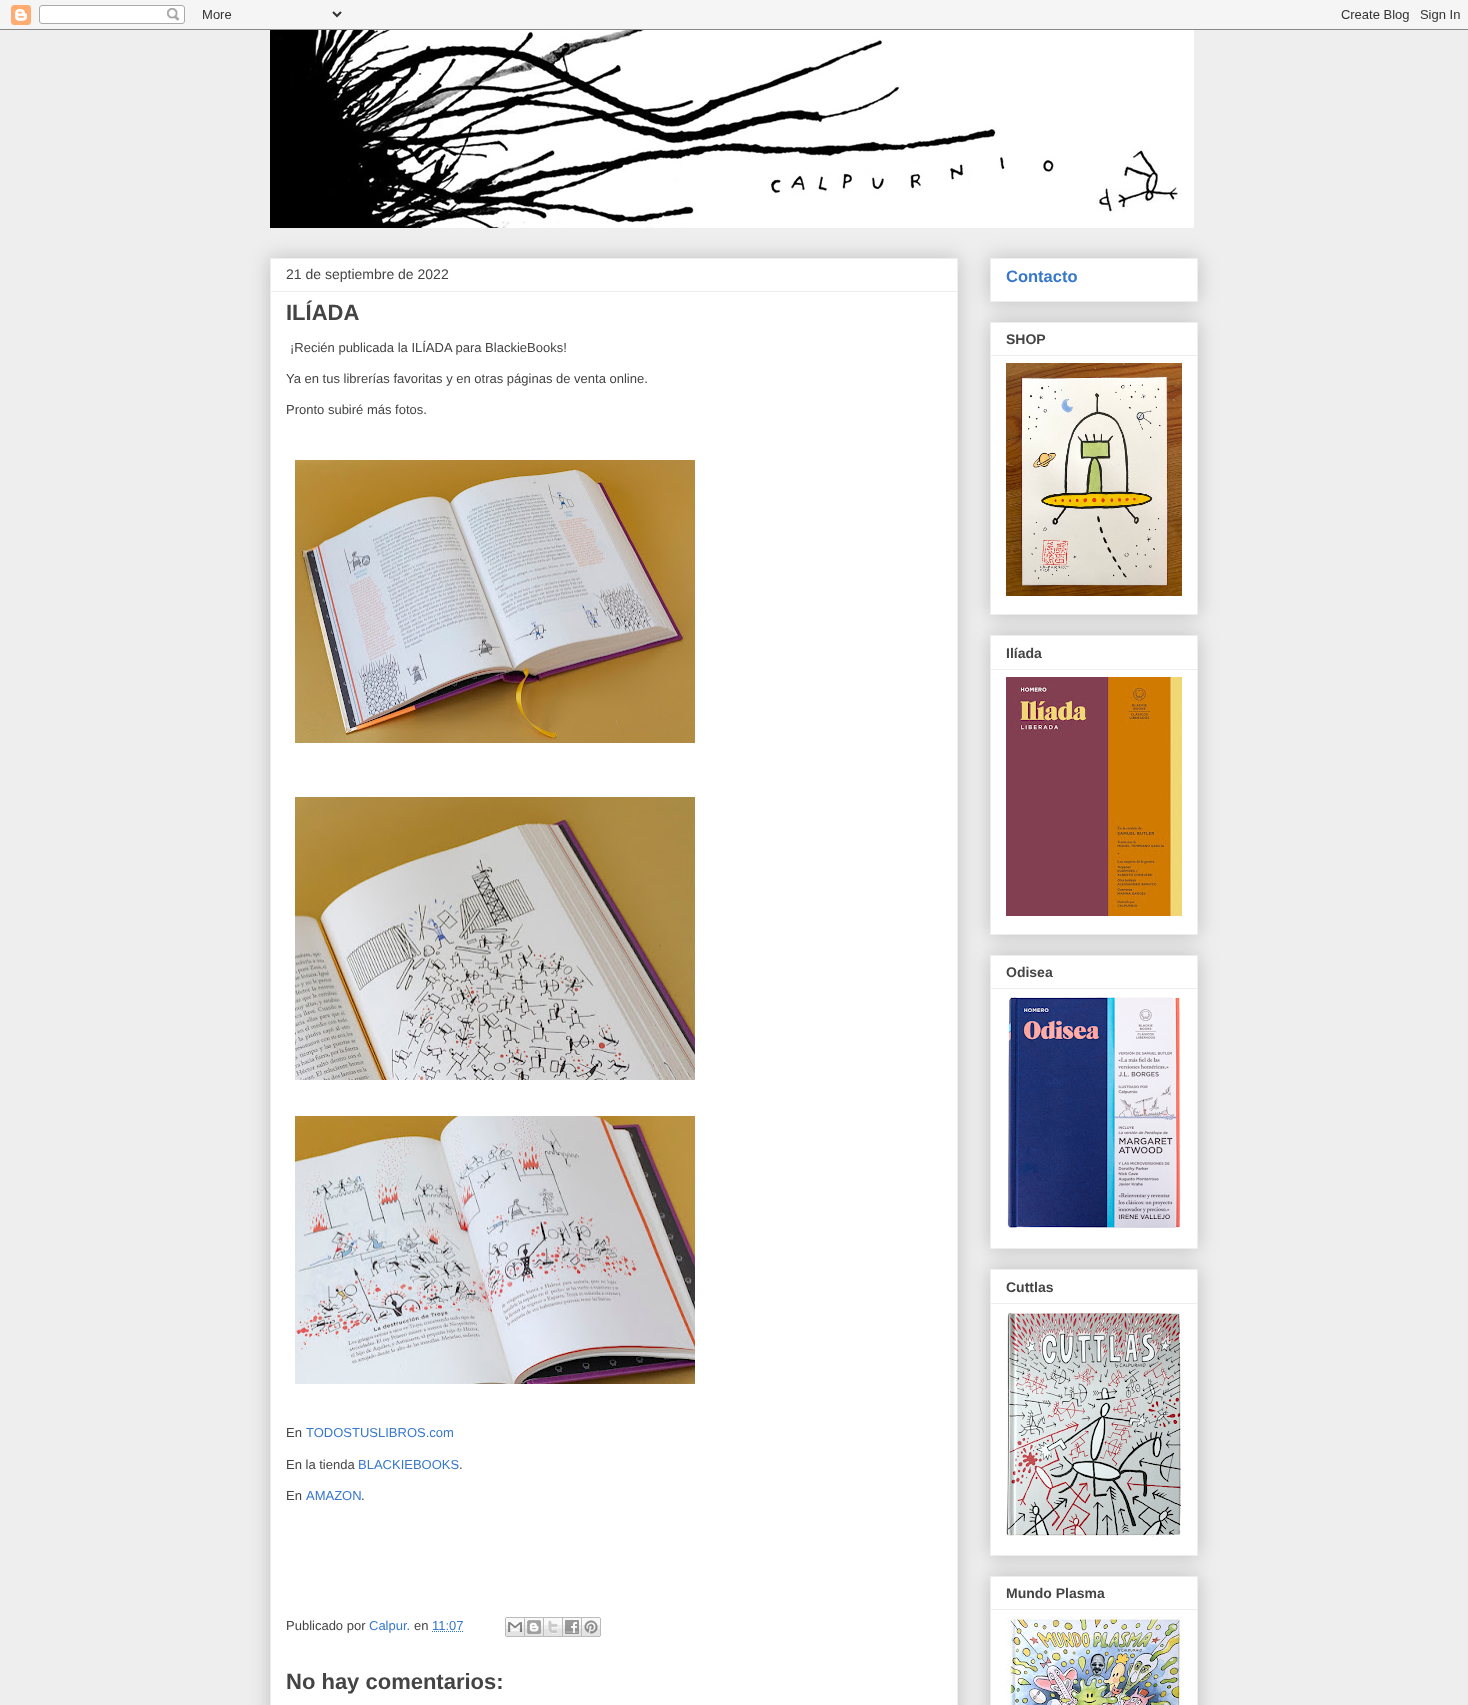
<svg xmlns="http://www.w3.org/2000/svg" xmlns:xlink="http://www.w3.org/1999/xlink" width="1468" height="1705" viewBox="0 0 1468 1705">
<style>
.cls-1{font:14px Liberation Sans;fill:#444444}
.cls-2{font:bold 22px Liberation Sans;fill:#444444}
.cls-3{font:13px Liberation Sans;fill:#444444}
.cls-4{font:13px Liberation Sans;fill:#3778cd}
.cls-5{font:bold 16.5px Liberation Sans;fill:#3778cd}
.cls-6{font:bold 14px Liberation Sans;fill:#444444}
</style>
<rect width="100%" height="100%" fill="#eeeeee"/>
<image xlink:href="image0.png" x="0" y="0" width="1468" height="30"/>
<image xlink:href="image1.png" x="270" y="30" width="924" height="198"/>
<rect fill="#000000" fill-opacity="0.2" filter="blur(10px)" x="270" y="258" width="688" height="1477"/>
<rect fill="#ffffff" stroke="#eeeeee" x="270.5" y="258.5" width="687" height="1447"/>
<rect fill="#eeeeee" x="271" y="291" width="686" height="1"/>
<image xlink:href="image2.png" x="295" y="460" width="400" height="283"/>
<image xlink:href="image3.png" x="295" y="797" width="400" height="283"/>
<image xlink:href="image4.png" x="295" y="1116" width="400" height="268"/>
<path fill="none" stroke="#3778cd" stroke-dasharray="1 1" d="M432 1631.5H463.5"/>
<image xlink:href="image5.png" x="505" y="1617" width="20" height="20"/>
<image xlink:href="image6.png" x="525" y="1617" width="19" height="20"/>
<image xlink:href="image7.png" x="544" y="1617" width="19" height="20"/>
<image xlink:href="image8.png" x="563" y="1617" width="19" height="20"/>
<image xlink:href="image9.png" x="582" y="1617" width="19" height="20"/>
<rect fill="#000000" fill-opacity="0.2" filter="blur(10px)" x="990" y="258" width="208" height="44"/>
<rect fill="#ffffff" stroke="#eeeeee" x="990.5" y="258.5" width="207" height="43"/>
<rect fill="#000000" fill-opacity="0.2" filter="blur(10px)" x="990" y="322" width="208" height="293"/>
<rect fill="#ffffff" stroke="#eeeeee" x="990.5" y="322.5" width="207" height="292"/>
<rect fill="#eeeeee" x="991" y="355" width="206" height="1"/>
<image xlink:href="image10.png" x="1006" y="363" width="176" height="233"/>
<rect fill="#000000" fill-opacity="0.2" filter="blur(10px)" x="990" y="635" width="208" height="300"/>
<rect fill="#ffffff" stroke="#eeeeee" x="990.5" y="635.5" width="207" height="299"/>
<rect fill="#eeeeee" x="991" y="669" width="206" height="1"/>
<image xlink:href="image11.png" x="1006" y="677" width="176" height="239"/>
<rect fill="#000000" fill-opacity="0.2" filter="blur(10px)" x="990" y="955" width="208" height="294"/>
<rect fill="#ffffff" stroke="#eeeeee" x="990.5" y="955.5" width="207" height="293"/>
<rect fill="#eeeeee" x="991" y="988" width="206" height="1"/>
<image xlink:href="image12.png" x="1007" y="997" width="174" height="231"/>
<rect fill="#000000" fill-opacity="0.2" filter="blur(10px)" x="990" y="1269" width="208" height="287"/>
<rect fill="#ffffff" stroke="#eeeeee" x="990.5" y="1269.5" width="207" height="286"/>
<rect fill="#eeeeee" x="991" y="1303" width="206" height="1"/>
<image xlink:href="image13.png" x="1006" y="1312" width="176" height="225"/>
<rect fill="#000000" fill-opacity="0.2" filter="blur(10px)" x="990" y="1576" width="208" height="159"/>
<rect fill="#ffffff" stroke="#eeeeee" x="990.5" y="1576.5" width="207" height="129"/>
<rect fill="#eeeeee" x="991" y="1609" width="206" height="1"/>
<image xlink:href="image14.png" x="1006" y="1617" width="176" height="88"/>
<text class="cls-1" x="286" y="279">21 de septiembre de 2022</text>
<text class="cls-2" x="286" y="320">ILÍADA</text>
<text class="cls-3" x="290" y="352">¡Recién publicada la ILÍADA para BlackieBooks!</text>
<text class="cls-3" x="286" y="383">Ya en tus librerías favoritas y en otras páginas de venta online.</text>
<text class="cls-3" x="286" y="414">Pronto subiré más fotos.</text>
<text class="cls-3" x="286" y="1437">En</text>
<text class="cls-4" x="306" y="1437">TODOSTUSLIBROS.com</text>
<text class="cls-3" x="286" y="1469">En la tienda</text>
<text class="cls-4" x="358" y="1469">BLACKIEBOOKS</text>
<text class="cls-3" x="459" y="1469">.</text>
<text class="cls-3" x="286" y="1500">En</text>
<text class="cls-4" x="306" y="1500">AMAZON</text>
<text class="cls-3" x="361" y="1500">.</text>
<text class="cls-3" x="286" y="1630">Publicado por</text>
<text class="cls-4" x="369" y="1630">Calpur.</text>
<text class="cls-3" x="414" y="1630">en</text>
<text class="cls-4" x="432" y="1630">11:07</text>
<text class="cls-2" x="286" y="1689">No hay comentarios:</text>
<text class="cls-5" x="1006" y="282">Contacto</text>
<text class="cls-6" x="1006" y="344">SHOP</text>
<text class="cls-6" x="1006" y="658">Ilíada</text>
<text class="cls-6" x="1006" y="977">Odisea</text>
<text class="cls-6" x="1006" y="1292">Cuttlas</text>
<text class="cls-6" x="1006" y="1598">Mundo Plasma</text>
</svg>
